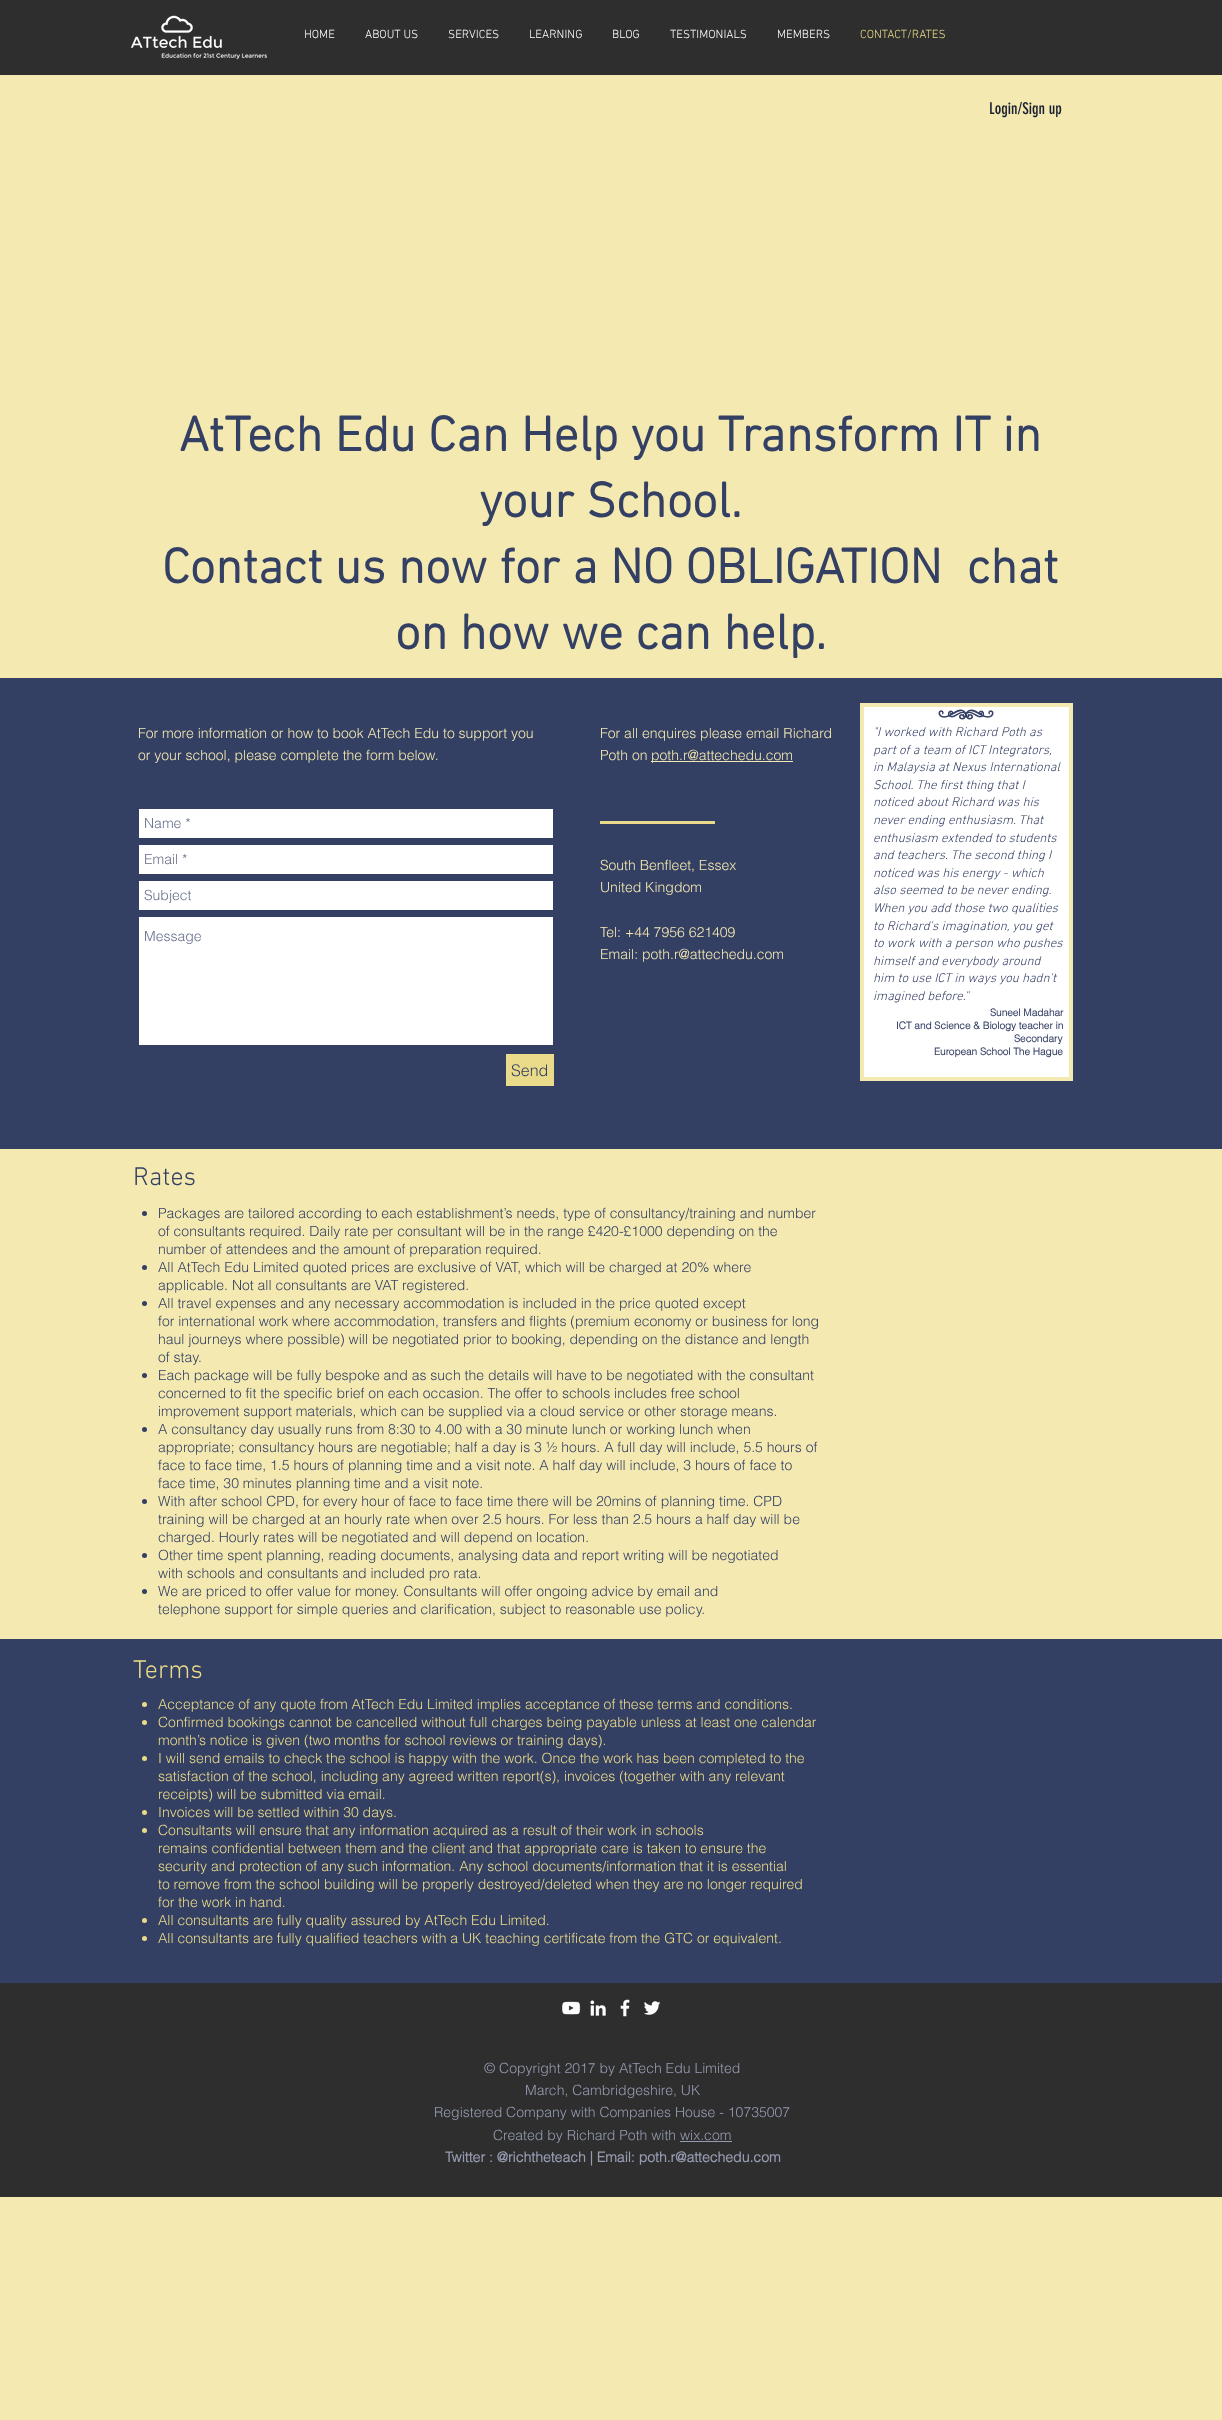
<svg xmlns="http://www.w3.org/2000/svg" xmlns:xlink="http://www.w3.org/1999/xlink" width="1222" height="2420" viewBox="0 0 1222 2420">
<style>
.cls-1{font:300 12px 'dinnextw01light';fill:#ffffff}
.cls-2{font:300 12px 'dinnextw01light';fill:#e9db89}
.cls-3{font:16px 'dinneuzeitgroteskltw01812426';fill:#1a2032}
.cls-4{font:bold 50px 'dinnextw01light';fill:#343f64}
.cls-5{font:300 14px helvetica;fill:#f4eab1}
.cls-6{font:italic 300 13px 'dinnextw01light';fill:#343f64}
.cls-7{font:bold 10px helvetica;fill:#343f64}
.cls-8{font:300 14px helvetica;fill:#69718b}
.cls-9{font:300 16px helvetica;fill:#343f64}
.cls-10{font:300 26px 'dinnextw01light';fill:#343f64}
.cls-11{font:300 14px helvetica;fill:#343f64}
.cls-12{font:300 26px 'dinnextw01light';fill:#e9db89}
.cls-13{font:300 14px helvetica;fill:#e9db89}
.cls-14{font:300 14px helvetica;fill:#959cb2}
.cls-15{font:bold 14px helvetica;fill:#959cb2}
</style>
<rect width="100%" height="100%" fill="#f4eab1"/>
<rect fill="#2f2e2e" x="0" y="0" width="1222" height="75"/>
<image xlink:href="image0.png" x="130" y="15" width="137" height="45"/>
<rect fill="#343f64" x="0" y="678" width="1222" height="471"/>
<rect fill="#ffffff" x="864" y="707" width="205" height="370"/>
<path fill="none" stroke="#f4eab1" stroke-width="4" d="M1071 705V1079H862V705Z"/>
<image xlink:href="image1.png" x="938" y="709" width="56" height="11"/>
<rect fill="#f4eab1" x="651" y="761" width="142" height="1"/>
<rect fill="#ffffff" x="139" y="809" width="414" height="29"/>
<rect fill="#ffffff" x="139" y="845" width="414" height="29"/>
<rect fill="#ffffff" x="139" y="881" width="414" height="29"/>
<rect fill="#ffffff" x="139" y="917" width="414" height="128"/>
<rect fill="#e9db89" x="506" y="1054" width="48" height="32"/>
<rect fill="#e9db89" x="600" y="821" width="115" height="3"/>
<circle fill="#343f64" cx="144.5" cy="1213.5" r="2.5"/>
<circle fill="#343f64" cx="144.5" cy="1267.5" r="2.5"/>
<circle fill="#343f64" cx="144.5" cy="1303.5" r="2.5"/>
<circle fill="#343f64" cx="144.5" cy="1375.5" r="2.5"/>
<circle fill="#343f64" cx="144.5" cy="1429.5" r="2.5"/>
<circle fill="#343f64" cx="144.5" cy="1501.5" r="2.5"/>
<circle fill="#343f64" cx="144.5" cy="1555.5" r="2.5"/>
<circle fill="#343f64" cx="144.5" cy="1591.5" r="2.5"/>
<rect fill="#343f64" x="0" y="1639" width="1222" height="344"/>
<circle fill="#e9db89" cx="144.5" cy="1704.5" r="2.5"/>
<circle fill="#e9db89" cx="144.5" cy="1722.5" r="2.5"/>
<circle fill="#e9db89" cx="144.5" cy="1758.5" r="2.5"/>
<circle fill="#e9db89" cx="144.5" cy="1812.5" r="2.5"/>
<circle fill="#e9db89" cx="144.5" cy="1830.5" r="2.5"/>
<circle fill="#e9db89" cx="144.5" cy="1920.5" r="2.5"/>
<circle fill="#e9db89" cx="144.5" cy="1938.5" r="2.5"/>
<rect fill="#2f2e2e" x="0" y="1983" width="1222" height="214"/>
<image xlink:href="image2.png" x="562" y="2001" width="19" height="14"/>
<image xlink:href="image3.png" x="590" y="2000" width="16" height="16"/>
<image xlink:href="image4.png" x="620" y="1999" width="10" height="18"/>
<image xlink:href="image5.png" x="644" y="2001" width="17" height="14"/>
<rect fill="#959cb2" x="680" y="2141" width="52" height="1"/>
<text class="cls-1" x="304" y="38">HOME</text>
<text class="cls-1" x="365" y="38">ABOUT US</text>
<text class="cls-1" x="448" y="38">SERVICES</text>
<text class="cls-1" x="529" y="38">LEARNING</text>
<text class="cls-1" x="612" y="38">BLOG</text>
<text class="cls-1" x="670" y="38">TESTIMONIALS</text>
<text class="cls-1" x="777" y="38">MEMBERS</text>
<text class="cls-2" x="860" y="38">CONTACT/RATES</text>
<text class="cls-3" x="989" y="114">Login/Sign up</text>
<text class="cls-4" x="179" y="451">AtTech Edu Can Help you Transform IT in</text>
<text class="cls-4" x="479" y="517">your School.</text>
<text class="cls-4" xml:space="preserve" x="162" y="583">Contact us now for a NO OBLIGATION  chat</text>
<text class="cls-4" x="395" y="649">on how we can help.</text>
<text class="cls-5"><tspan x="138" y="738">For more information or how to book AtTech Edu to support you</tspan><tspan x="138" y="760">or your school, please complete the form below.</tspan></text>
<text class="cls-5"><tspan x="600" y="738">For all enquires please email Richard</tspan><tspan x="600" y="760">Poth on</tspan></text>
<text class="cls-5" x="651" y="760">poth.r@attechedu.com</text>
<text class="cls-6"><tspan x="873" y="736">"I worked with Richard Poth as</tspan><tspan x="873" y="754">part of a team of ICT Integrators,</tspan><tspan x="873" y="771">in Malaysia at Nexus International</tspan><tspan x="873" y="789">School. The first thing that I</tspan><tspan x="873" y="806">noticed about Richard was his</tspan><tspan x="873" y="824">never ending enthusiasm. That</tspan><tspan x="873" y="842">enthusiasm extended to students</tspan><tspan x="873" y="859">and teachers. The second thing I</tspan><tspan x="873" y="877">noticed was his energy - which</tspan><tspan x="873" y="894">also seemed to be never ending.</tspan><tspan x="873" y="912">When you add those two qualities</tspan><tspan x="873" y="930">to Richard's imagination, you get</tspan><tspan x="873" y="947">to work with a person who pushes</tspan><tspan x="873" y="965">himself and everybody around</tspan><tspan x="873" y="982">him to use ICT in ways you hadn't</tspan><tspan x="873" y="1000">imagined before."</tspan></text>
<text class="cls-7" x="990" y="1016">Suneel Madahar</text>
<text class="cls-7" x="896" y="1029">ICT and Science &amp; Biology teacher in</text>
<text class="cls-7" x="1014" y="1042">Secondary</text>
<text class="cls-7" x="934" y="1055">European School The Hague</text>
<text class="cls-8" x="144" y="828">Name *</text>
<text class="cls-8" x="144" y="864">Email *</text>
<text class="cls-8" x="144" y="900">Subject</text>
<text class="cls-8" x="144" y="941">Message</text>
<text class="cls-9" x="511" y="1076">Send</text>
<text class="cls-5"><tspan x="600" y="870">South Benfleet, Essex</tspan><tspan x="600" y="892">United Kingdom</tspan></text>
<text class="cls-5"><tspan x="600" y="937">Tel: +44 7956 621409</tspan><tspan x="600" y="959">Email: poth.r@attechedu.com</tspan></text>
<text class="cls-10" x="133" y="1185">Rates</text>
<text class="cls-11"><tspan x="158" y="1218">Packages are tailored according to each establishment’s needs, type of consultancy/training and number</tspan><tspan x="158" y="1236">of consultants required. Daily rate per consultant will be in the range £420-£1000 depending on the</tspan><tspan x="158" y="1254">number of attendees and the amount of preparation required.</tspan><tspan x="158" y="1272">All AtTech Edu Limited quoted prices are exclusive of VAT, which will be charged at 20% where</tspan><tspan x="158" y="1290">applicable. Not all consultants are VAT registered.</tspan><tspan x="158" y="1308">All travel expenses and any necessary accommodation is included in the price quoted except</tspan><tspan x="158" y="1326">for international work where accommodation, transfers and flights (premium economy or business for long</tspan><tspan x="158" y="1344">haul journeys where possible) will be negotiated prior to booking, depending on the distance and length</tspan><tspan x="158" y="1362">of stay.</tspan><tspan x="158" y="1380">Each package will be fully bespoke and as such the details will have to be negotiated with the consultant</tspan><tspan x="158" y="1398">concerned to fit the specific brief on each occasion. The offer to schools includes free school</tspan><tspan x="158" y="1416">improvement support materials, which can be supplied via a cloud service or other storage means.</tspan><tspan x="158" y="1434">A consultancy day usually runs from 8:30 to 4.00 with a 30 minute lunch or working lunch when</tspan><tspan x="158" y="1452">appropriate; consultancy hours are negotiable; half a day is 3 ½ hours. A full day will include, 5.5 hours of</tspan><tspan x="158" y="1470">face to face time, 1.5 hours of planning time and a visit note. A half day will include, 3 hours of face to</tspan><tspan x="158" y="1488">face time, 30 minutes planning time and a visit note.</tspan><tspan x="158" y="1506">With after school CPD, for every hour of face to face time there will be 20mins of planning time. CPD</tspan><tspan x="158" y="1524">training will be charged at an hourly rate when over 2.5 hours. For less than 2.5 hours a half day will be</tspan><tspan x="158" y="1542">charged. Hourly rates will be negotiated and will depend on location.</tspan><tspan x="158" y="1560">Other time spent planning, reading documents, analysing data and report writing will be negotiated</tspan><tspan x="158" y="1578">with schools and consultants and included pro rata.</tspan><tspan x="158" y="1596">We are priced to offer value for money. Consultants will offer ongoing advice by email and</tspan><tspan x="158" y="1614">telephone support for simple queries and clarification, subject to reasonable use policy.</tspan></text>
<text class="cls-12" x="133" y="1678">Terms</text>
<text class="cls-13"><tspan x="158" y="1709">Acceptance of any quote from AtTech Edu Limited implies acceptance of these terms and conditions.</tspan><tspan x="158" y="1727">Confirmed bookings cannot be cancelled without full charges being payable unless at least one calendar</tspan><tspan x="158" y="1745">month’s notice is given (two months for school reviews or training days).</tspan><tspan x="158" y="1763">I will send emails to check the school is happy with the work. Once the work has been completed to the</tspan><tspan x="158" y="1781">satisfaction of the school, including any agreed written report(s), invoices (together with any relevant</tspan><tspan x="158" y="1799">receipts) will be submitted via email.</tspan><tspan x="158" y="1817">Invoices will be settled within 30 days.</tspan><tspan x="158" y="1835">Consultants will ensure that any information acquired as a result of their work in schools</tspan><tspan x="158" y="1853">remains confidential between them and the client and that appropriate care is taken to ensure the</tspan><tspan x="158" y="1871">security and protection of any such information. Any school documents/information that it is essential</tspan><tspan x="158" y="1889">to remove from the school building will be properly destroyed/deleted when they are no longer required</tspan><tspan x="158" y="1907">for the work in hand.</tspan><tspan x="158" y="1925">All consultants are fully quality assured by AtTech Edu Limited.</tspan><tspan x="158" y="1943">All consultants are fully qualified teachers with a UK teaching certificate from the GTC or equivalent.</tspan></text>
<text class="cls-14" x="484" y="2073">© Copyright 2017 by AtTech Edu Limited</text>
<text class="cls-14" x="525" y="2095">March, Cambridgeshire, UK</text>
<text class="cls-14" x="434" y="2117">Registered Company with Companies House - 10735007</text>
<text class="cls-14" x="493" y="2140">Created by Richard Poth with wix.com</text>
<text class="cls-15" x="445" y="2162">Twitter : @richtheteach | Email: poth.r@attechedu.com</text>
</svg>
